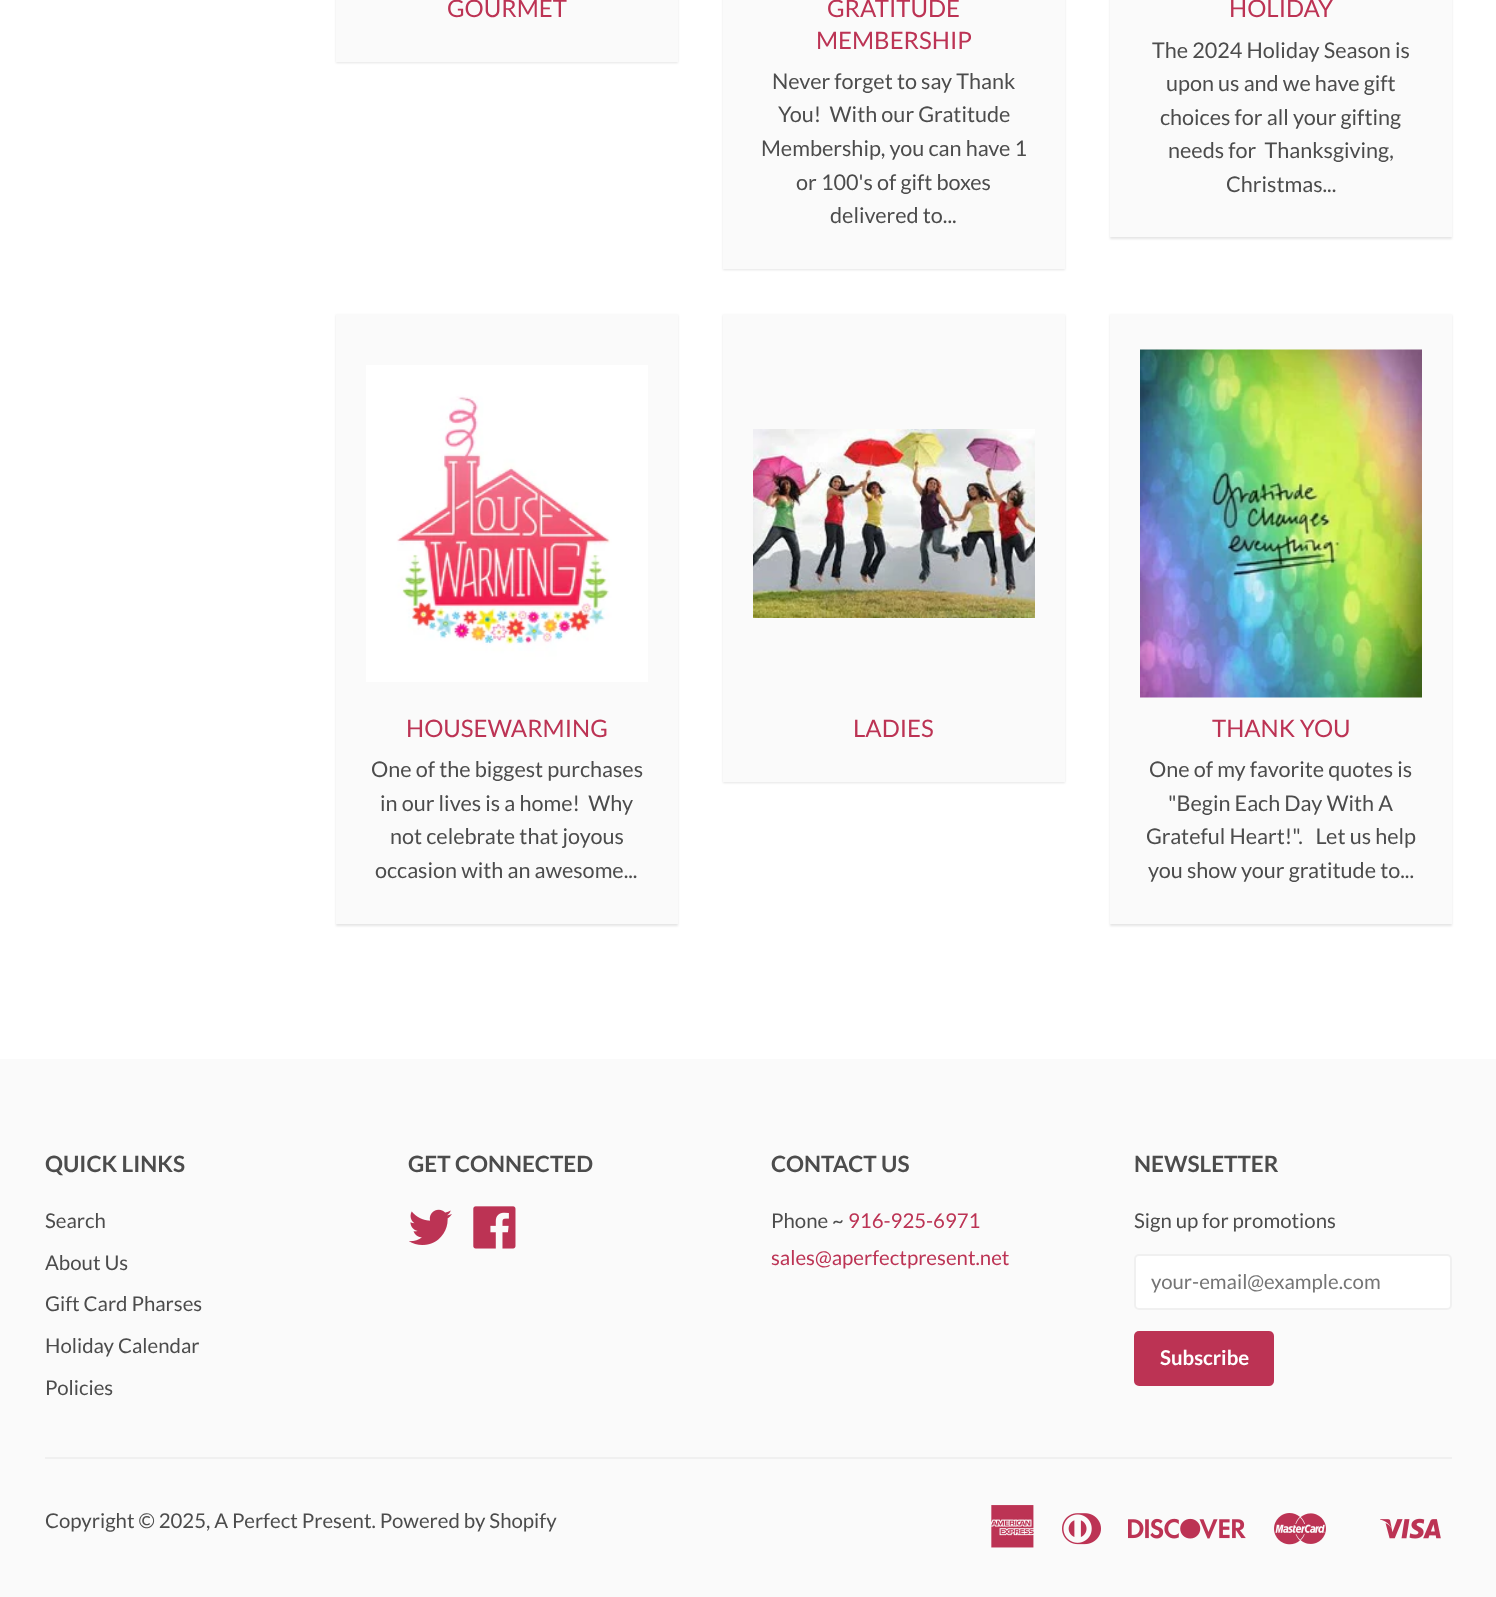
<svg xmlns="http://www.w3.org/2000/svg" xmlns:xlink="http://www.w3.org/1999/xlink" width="1496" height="1597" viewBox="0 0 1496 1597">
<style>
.cls-1{font:24px Lato;fill:#bc3354}
.cls-2{font:21.6px Lato;fill:#4c4c4c}
.cls-3{font:bold 22.5px Lato;fill:#4c4c4c}
.cls-4{font:20.4px Lato;fill:#4c4c4c}
.cls-5{font:20.4px Lato;fill:#bc3354}
.cls-6{font:20.4px Lato;fill:#757575}
.cls-7{font:bold 20.4px Lato;fill:#ffffff}
</style>
<rect width="100%" height="100%" fill="#ffffff"/>
<rect fill="#000000" fill-opacity="0.1" filter="blur(1px)" x="336" y="-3" width="342" height="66"/>
<rect fill="#fafafa" x="336" y="0" width="342" height="62"/>
<rect fill="#000000" fill-opacity="0.1" filter="blur(1px)" x="723" y="-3" width="342" height="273"/>
<rect fill="#fafafa" x="723" y="0" width="342" height="269"/>
<rect fill="#000000" fill-opacity="0.1" filter="blur(1px)" x="1110" y="-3" width="342" height="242"/>
<rect fill="#fafafa" x="1110" y="0" width="342" height="237"/>
<rect fill="#000000" fill-opacity="0.1" filter="blur(1px)" x="336" y="315" width="342" height="611"/>
<rect fill="#fafafa" x="336" y="314" width="342" height="610"/>
<image xlink:href="image0.png" x="366" y="365" width="282" height="317"/>
<rect fill="#000000" fill-opacity="0.1" filter="blur(1px)" x="723" y="315" width="342" height="468"/>
<rect fill="#fafafa" x="723" y="314" width="342" height="468"/>
<image xlink:href="image1.png" x="753" y="429" width="282" height="189"/>
<rect fill="#000000" fill-opacity="0.1" filter="blur(1px)" x="1110" y="315" width="342" height="611"/>
<rect fill="#fafafa" x="1110" y="314" width="342" height="610"/>
<image xlink:href="image2.png" x="1140" y="349" width="282" height="349"/>
<rect fill="#fafafa" x="0" y="1059" width="1496" height="538"/>
<image xlink:href="image3.png" x="409" y="1209" width="43" height="36"/>
<image xlink:href="image4.png" x="473" y="1206" width="43" height="43"/>
<rect fill="#ffffff" stroke="#f0f0f0" stroke-width="2" x="1135" y="1255" width="316" height="54" rx="4"/>
<rect fill="#bc3354" x="1134" y="1331" width="140" height="55" rx="5"/>
<rect fill="#f0f0f0" x="45" y="1457" width="1407" height="2"/>
<image xlink:href="image5.png" x="991" y="1505" width="43" height="43"/>
<image xlink:href="image6.png" x="1062" y="1513" width="39" height="32"/>
<image xlink:href="image7.png" x="1128" y="1518" width="118" height="21"/>
<image xlink:href="image8.png" x="1274" y="1513" width="52" height="32"/>
<image xlink:href="image9.png" x="1380" y="1518" width="61" height="21"/>
<text class="cls-1" x="447" y="17">GOURMET</text>
<text class="cls-1" x="827" y="17">GRATITUDE</text>
<text class="cls-1" x="816" y="49">MEMBERSHIP</text>
<text class="cls-2" x="772" y="89">Never forget to say Thank</text>
<text class="cls-2" xml:space="preserve" x="778" y="122">You!  With our Gratitude</text>
<text class="cls-2" x="761" y="156">Membership, you can have 1</text>
<text class="cls-2" x="796" y="190">or 100's of gift boxes</text>
<text class="cls-2" x="830" y="223">delivered to...</text>
<text class="cls-1" x="1229" y="17">HOLIDAY</text>
<text class="cls-2" x="1152" y="58">The 2024 Holiday Season is</text>
<text class="cls-2" x="1166" y="91">upon us and we have gift</text>
<text class="cls-2" x="1160" y="125">choices for all your gifting</text>
<text class="cls-2" xml:space="preserve" x="1168" y="158">needs for  Thanksgiving,</text>
<text class="cls-2" x="1226" y="192">Christmas...</text>
<text class="cls-1" x="406" y="737">HOUSEWARMING</text>
<text class="cls-2" x="371" y="777">One of the biggest purchases</text>
<text class="cls-2" xml:space="preserve" x="380" y="811">in our lives is a home!  Why</text>
<text class="cls-2" x="390" y="844">not celebrate that joyous</text>
<text class="cls-2" x="375" y="878">occasion with an awesome...</text>
<text class="cls-1" x="853" y="737">LADIES</text>
<text class="cls-1" x="1212" y="737">THANK YOU</text>
<text class="cls-2" x="1149" y="777">One of my favorite quotes is</text>
<text class="cls-2" x="1168" y="811">"Begin Each Day With A</text>
<text class="cls-2" xml:space="preserve" x="1146" y="844">Grateful Heart!".   Let us help</text>
<text class="cls-2" x="1148" y="878">you show your gratitude to...</text>
<text class="cls-3" x="45" y="1172">QUICK LINKS</text>
<text class="cls-4" x="45" y="1228">Search</text>
<text class="cls-4" x="45" y="1270">About Us</text>
<text class="cls-4" x="45" y="1311">Gift Card Pharses</text>
<text class="cls-4" x="45" y="1353">Holiday Calendar</text>
<text class="cls-4" x="45" y="1395">Policies</text>
<text class="cls-3" x="408" y="1172">GET CONNECTED</text>
<text class="cls-3" x="771" y="1172">CONTACT US</text>
<text class="cls-4" x="771" y="1228">Phone ~</text>
<text class="cls-5" x="848" y="1228">916-925-6971</text>
<text class="cls-5" x="771" y="1265">sales@aperfectpresent.net</text>
<text class="cls-3" x="1134" y="1172">NEWSLETTER</text>
<text class="cls-4" x="1134" y="1228">Sign up for promotions</text>
<text class="cls-6" x="1151" y="1289">your-email@example.com</text>
<text class="cls-7" x="1160" y="1365">Subscribe</text>
<text class="cls-4" x="45" y="1528">Copyright © 2025, A Perfect Present. Powered by Shopify</text>
</svg>
